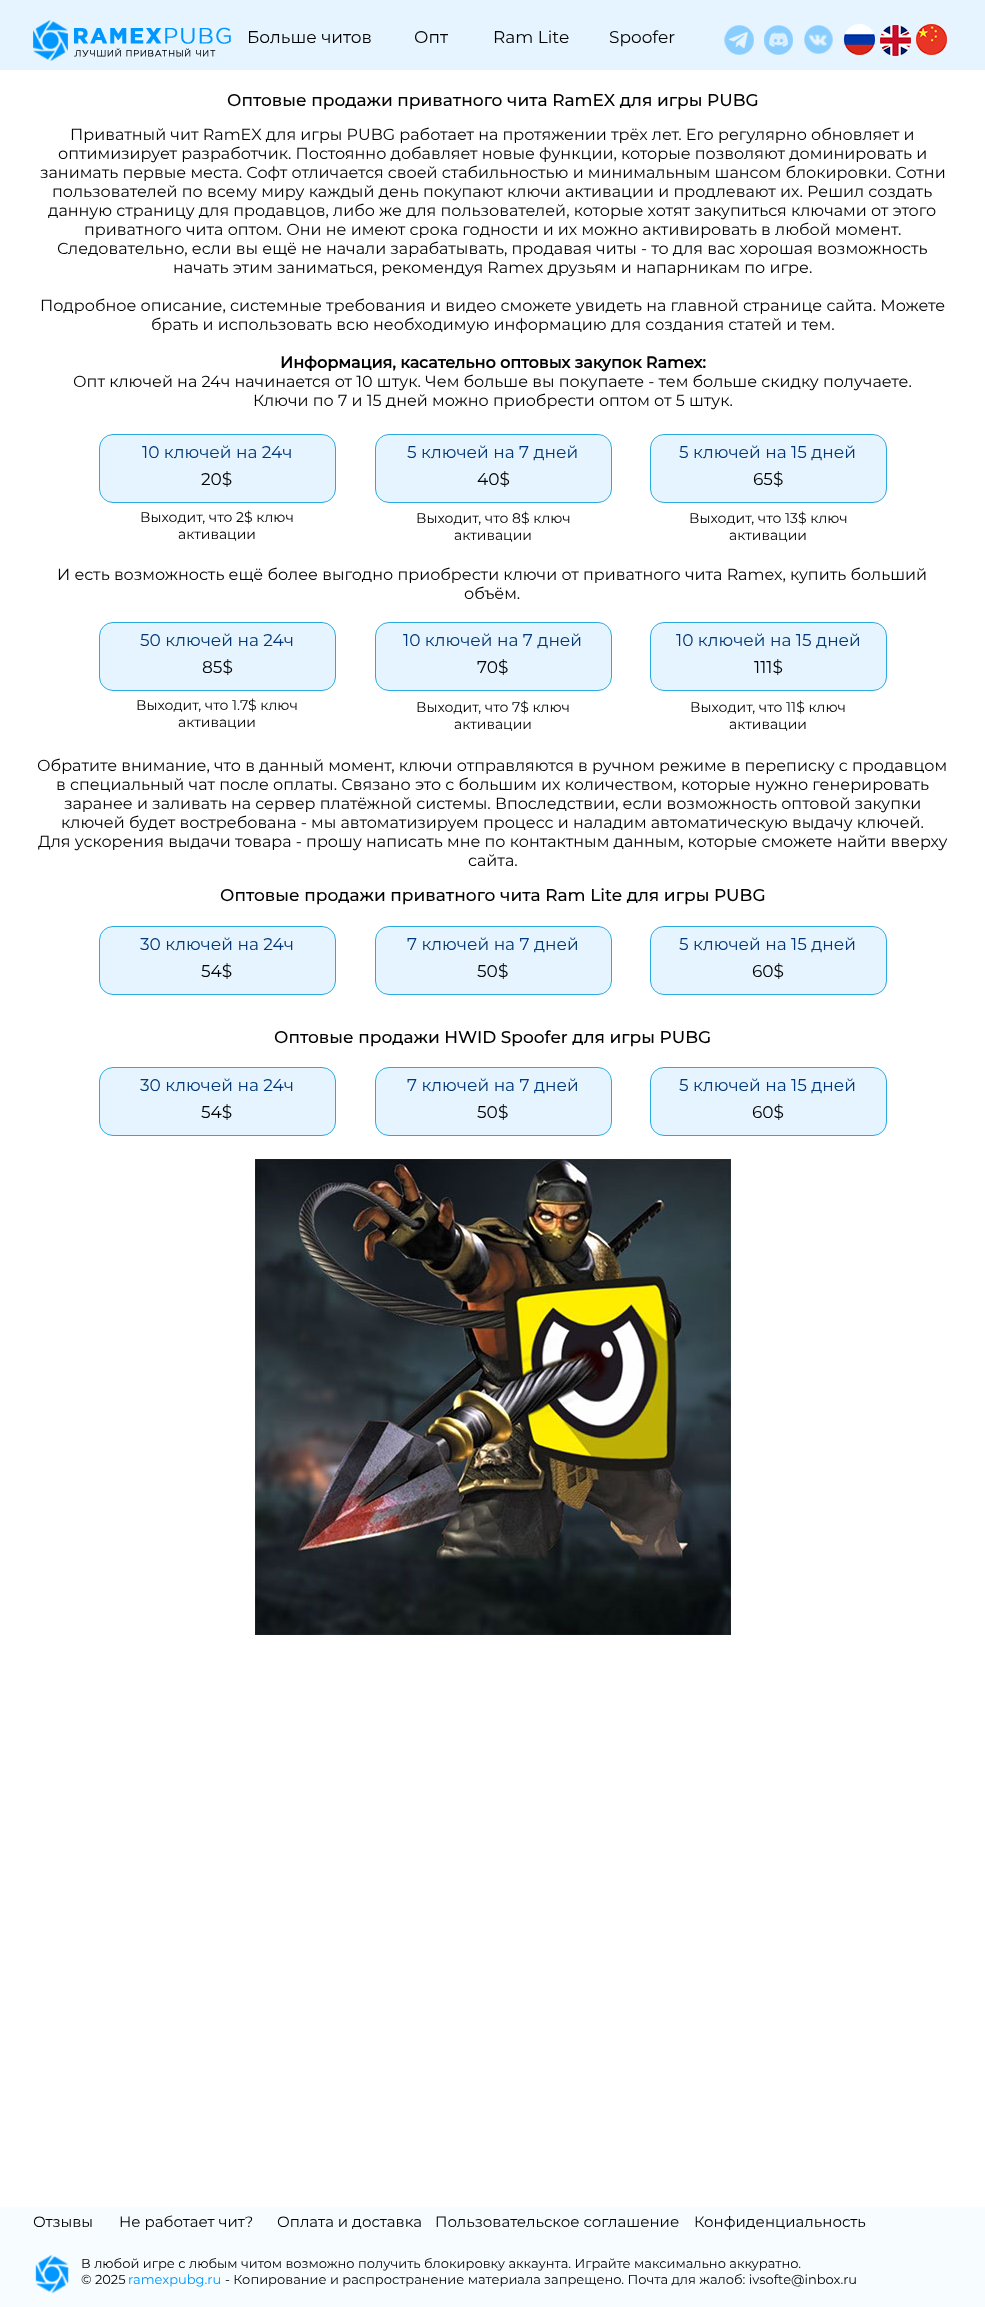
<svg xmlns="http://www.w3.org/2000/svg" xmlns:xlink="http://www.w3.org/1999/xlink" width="985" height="2307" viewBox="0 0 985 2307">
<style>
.cls-1{font:17px Montserrat;fill:#000000}
.cls-2{font:500 17px Montserrat;fill:#000000}
.cls-3{font:16px Montserrat;fill:#000000}
.cls-4{font:bold 16px Montserrat;fill:#000000}
.cls-5{font:17px Montserrat;fill:#003879}
.cls-6{font:14px Montserrat;fill:#000000}
.cls-7{font:15px Montserrat;fill:#000000}
.cls-8{font:13px Montserrat;fill:#000000}
.cls-9{font:13px Montserrat;fill:#0097ff}
</style>
<rect width="100%" height="100%" fill="#ffffff"/>
<rect fill="#e5f4fe" x="0" y="0" width="985" height="70"/>
<image xlink:href="image0.png" x="33" y="20" width="198" height="41"/>
<image xlink:href="image1.png" x="724" y="25" width="30" height="30"/>
<image xlink:href="image2.png" x="764" y="25" width="29" height="30"/>
<image xlink:href="image3.png" x="804" y="25" width="29" height="29"/>
<image xlink:href="image4.png" x="844" y="24" width="31" height="31"/>
<image xlink:href="image5.png" x="880" y="25" width="31" height="31"/>
<image xlink:href="image6.png" x="916" y="24" width="31" height="31"/>
<rect fill="#e5f4fe" stroke="#29abe2" x="99.5" y="434.5" width="236" height="68" rx="13.5"/>
<rect fill="#e5f4fe" stroke="#29abe2" x="375.5" y="434.5" width="236" height="68" rx="13.5"/>
<rect fill="#e5f4fe" stroke="#29abe2" x="650.5" y="434.5" width="236" height="68" rx="13.5"/>
<rect fill="#e5f4fe" stroke="#29abe2" x="99.5" y="622.5" width="236" height="68" rx="13.5"/>
<rect fill="#e5f4fe" stroke="#29abe2" x="375.5" y="622.5" width="236" height="68" rx="13.5"/>
<rect fill="#e5f4fe" stroke="#29abe2" x="650.5" y="622.5" width="236" height="68" rx="13.5"/>
<rect fill="#e5f4fe" stroke="#29abe2" x="99.5" y="926.5" width="236" height="68" rx="13.5"/>
<rect fill="#e5f4fe" stroke="#29abe2" x="375.5" y="926.5" width="236" height="68" rx="13.5"/>
<rect fill="#e5f4fe" stroke="#29abe2" x="650.5" y="926.5" width="236" height="68" rx="13.5"/>
<rect fill="#e5f4fe" stroke="#29abe2" x="99.5" y="1067.5" width="236" height="68" rx="13.5"/>
<rect fill="#e5f4fe" stroke="#29abe2" x="375.5" y="1067.5" width="236" height="68" rx="13.5"/>
<rect fill="#e5f4fe" stroke="#29abe2" x="650.5" y="1067.5" width="236" height="68" rx="13.5"/>
<image xlink:href="image7.png" x="255" y="1159" width="476" height="476"/>
<rect fill="#f7fcff" x="0" y="2207" width="985" height="100"/>
<image xlink:href="image8.png" x="35" y="2255" width="34" height="38"/>
<text class="cls-1" x="247" y="43">Больше читов</text>
<text class="cls-1" x="414" y="43">Опт</text>
<text class="cls-1" x="493" y="43">Ram Lite</text>
<text class="cls-1" x="609" y="43">Spoofer</text>
<text class="cls-2" x="227" y="106">Оптовые продажи приватного чита RamEX для игры PUBG</text>
<text class="cls-3" x="70" y="140">Приватный чит RamEX для игры PUBG работает на протяжении трёх лет. Его регулярно обновляет и</text>
<text class="cls-3" x="58" y="159">оптимизирует разработчик. Постоянно добавляет новые функции, которые позволяют доминировать и</text>
<text class="cls-3" x="40" y="178">занимать первые места. Софт отличается своей стабильностью и минимальным шансом блокировки. Сотни</text>
<text class="cls-3" x="52" y="197">пользователей по всему миру каждый день покупают ключи активации и продлевают их. Решил создать</text>
<text class="cls-3" x="48" y="216">данную страницу для продавцов, либо же для пользователей, которые хотят закупиться ключами от этого</text>
<text class="cls-3" x="84" y="235">приватного чита оптом. Они не имеют срока годности и их можно активировать в любой момент.</text>
<text class="cls-3" x="57" y="254">Следовательно, если вы ещё не начали зарабатывать, продавая читы - то для вас хорошая возможность</text>
<text class="cls-3" x="173" y="273">начать этим заниматься, рекомендуя Ramex друзьям и напарникам по игре.</text>
<text class="cls-3" x="40" y="311">Подробное описание, системные требования и видео сможете увидеть на главной странице сайта. Можете</text>
<text class="cls-3" x="151" y="330">брать и использовать всю необходимую информацию для создания статей и тем.</text>
<text class="cls-4" x="280" y="368">Информация, касательно оптовых закупок Ramex:</text>
<text class="cls-3" x="73" y="387">Опт ключей на 24ч начинается от 10 штук. Чем больше вы покупаете - тем больше скидку получаете.</text>
<text class="cls-3" x="253" y="406">Ключи по 7 и 15 дней можно приобрести оптом от 5 штук.</text>
<text class="cls-5" x="142" y="458">10 ключей на 24ч</text>
<text class="cls-1" x="201" y="485">20$</text>
<text class="cls-5" x="407" y="458">5 ключей на 7 дней</text>
<text class="cls-1" x="477" y="485">40$</text>
<text class="cls-5" x="679" y="458">5 ключей на 15 дней</text>
<text class="cls-1" x="753" y="485">65$</text>
<text class="cls-6" x="140" y="522">Выходит, что 2$ ключ</text>
<text class="cls-6" x="178" y="539">активации</text>
<text class="cls-6" x="416" y="523">Выходит, что 8$ ключ</text>
<text class="cls-6" x="454" y="540">активации</text>
<text class="cls-6" x="689" y="523">Выходит, что 13$ ключ</text>
<text class="cls-6" x="729" y="540">активации</text>
<text class="cls-3" x="57" y="580">И есть возможность ещё более выгодно приобрести ключи от приватного чита Ramex, купить больший</text>
<text class="cls-3" x="464" y="599">объём.</text>
<text class="cls-5" x="140" y="646">50 ключей на 24ч</text>
<text class="cls-1" x="202" y="673">85$</text>
<text class="cls-5" x="403" y="646">10 ключей на 7 дней</text>
<text class="cls-1" x="477" y="673">70$</text>
<text class="cls-5" x="676" y="646">10 ключей на 15 дней</text>
<text class="cls-1" x="754" y="673">111$</text>
<text class="cls-6" x="136" y="710">Выходит, что 1.7$ ключ</text>
<text class="cls-6" x="178" y="727">активации</text>
<text class="cls-6" x="416" y="712">Выходит, что 7$ ключ</text>
<text class="cls-6" x="454" y="729">активации</text>
<text class="cls-6" x="690" y="712">Выходит, что 11$ ключ</text>
<text class="cls-6" x="729" y="729">активации</text>
<text class="cls-3" x="37" y="771">Обратите внимание, что в данный момент, ключи отправляются в ручном режиме в переписку с продавцом</text>
<text class="cls-3" x="56" y="790">в специальный чат после оплаты. Связано это с большим их количеством, которые нужно генерировать</text>
<text class="cls-3" x="64" y="809">заранее и заливать на сервер платёжной системы. Впоследствии, если возможность оптовой закупки</text>
<text class="cls-3" x="61" y="828">ключей будет востребована - мы автоматизируем процесс и наладим автоматическую выдачу ключей.</text>
<text class="cls-3" x="38" y="847">Для ускорения выдачи товара - прошу написать мне по контактным данным, которые сможете найти вверху</text>
<text class="cls-3" x="468" y="866">сайта.</text>
<text class="cls-2" x="220" y="901">Оптовые продажи приватного чита Ram Lite для игры PUBG</text>
<text class="cls-5" x="140" y="950">30 ключей на 24ч</text>
<text class="cls-1" x="201" y="977">54$</text>
<text class="cls-5" x="407" y="950">7 ключей на 7 дней</text>
<text class="cls-1" x="477" y="977">50$</text>
<text class="cls-5" x="679" y="950">5 ключей на 15 дней</text>
<text class="cls-1" x="752" y="977">60$</text>
<text class="cls-2" x="274" y="1043">Оптовые продажи HWID Spoofer для игры PUBG</text>
<text class="cls-5" x="140" y="1091">30 ключей на 24ч</text>
<text class="cls-1" x="201" y="1118">54$</text>
<text class="cls-5" x="407" y="1091">7 ключей на 7 дней</text>
<text class="cls-1" x="477" y="1118">50$</text>
<text class="cls-5" x="679" y="1091">5 ключей на 15 дней</text>
<text class="cls-1" x="752" y="1118">60$</text>
<text class="cls-7" x="33" y="2227">Отзывы</text>
<text class="cls-7" x="119" y="2227">Не работает чит?</text>
<text class="cls-7" x="277" y="2227">Оплата и доставка</text>
<text class="cls-7" x="435" y="2227">Пользовательское соглашение</text>
<text class="cls-7" x="694" y="2227">Конфиденциальность</text>
<text class="cls-8"><tspan x="81" y="2268">В любой игре с любым читом возможно получить блокировку аккаунта. Играйте максимально аккуратно.</tspan><tspan x="81" y="2284">© 2025</tspan></text>
<text class="cls-9" x="128" y="2284">ramexpubg.ru</text>
<text class="cls-8" x="225" y="2284">- Копирование и распространение материала запрещено. Почта для жалоб: ivsofte@inbox.ru</text>
</svg>
